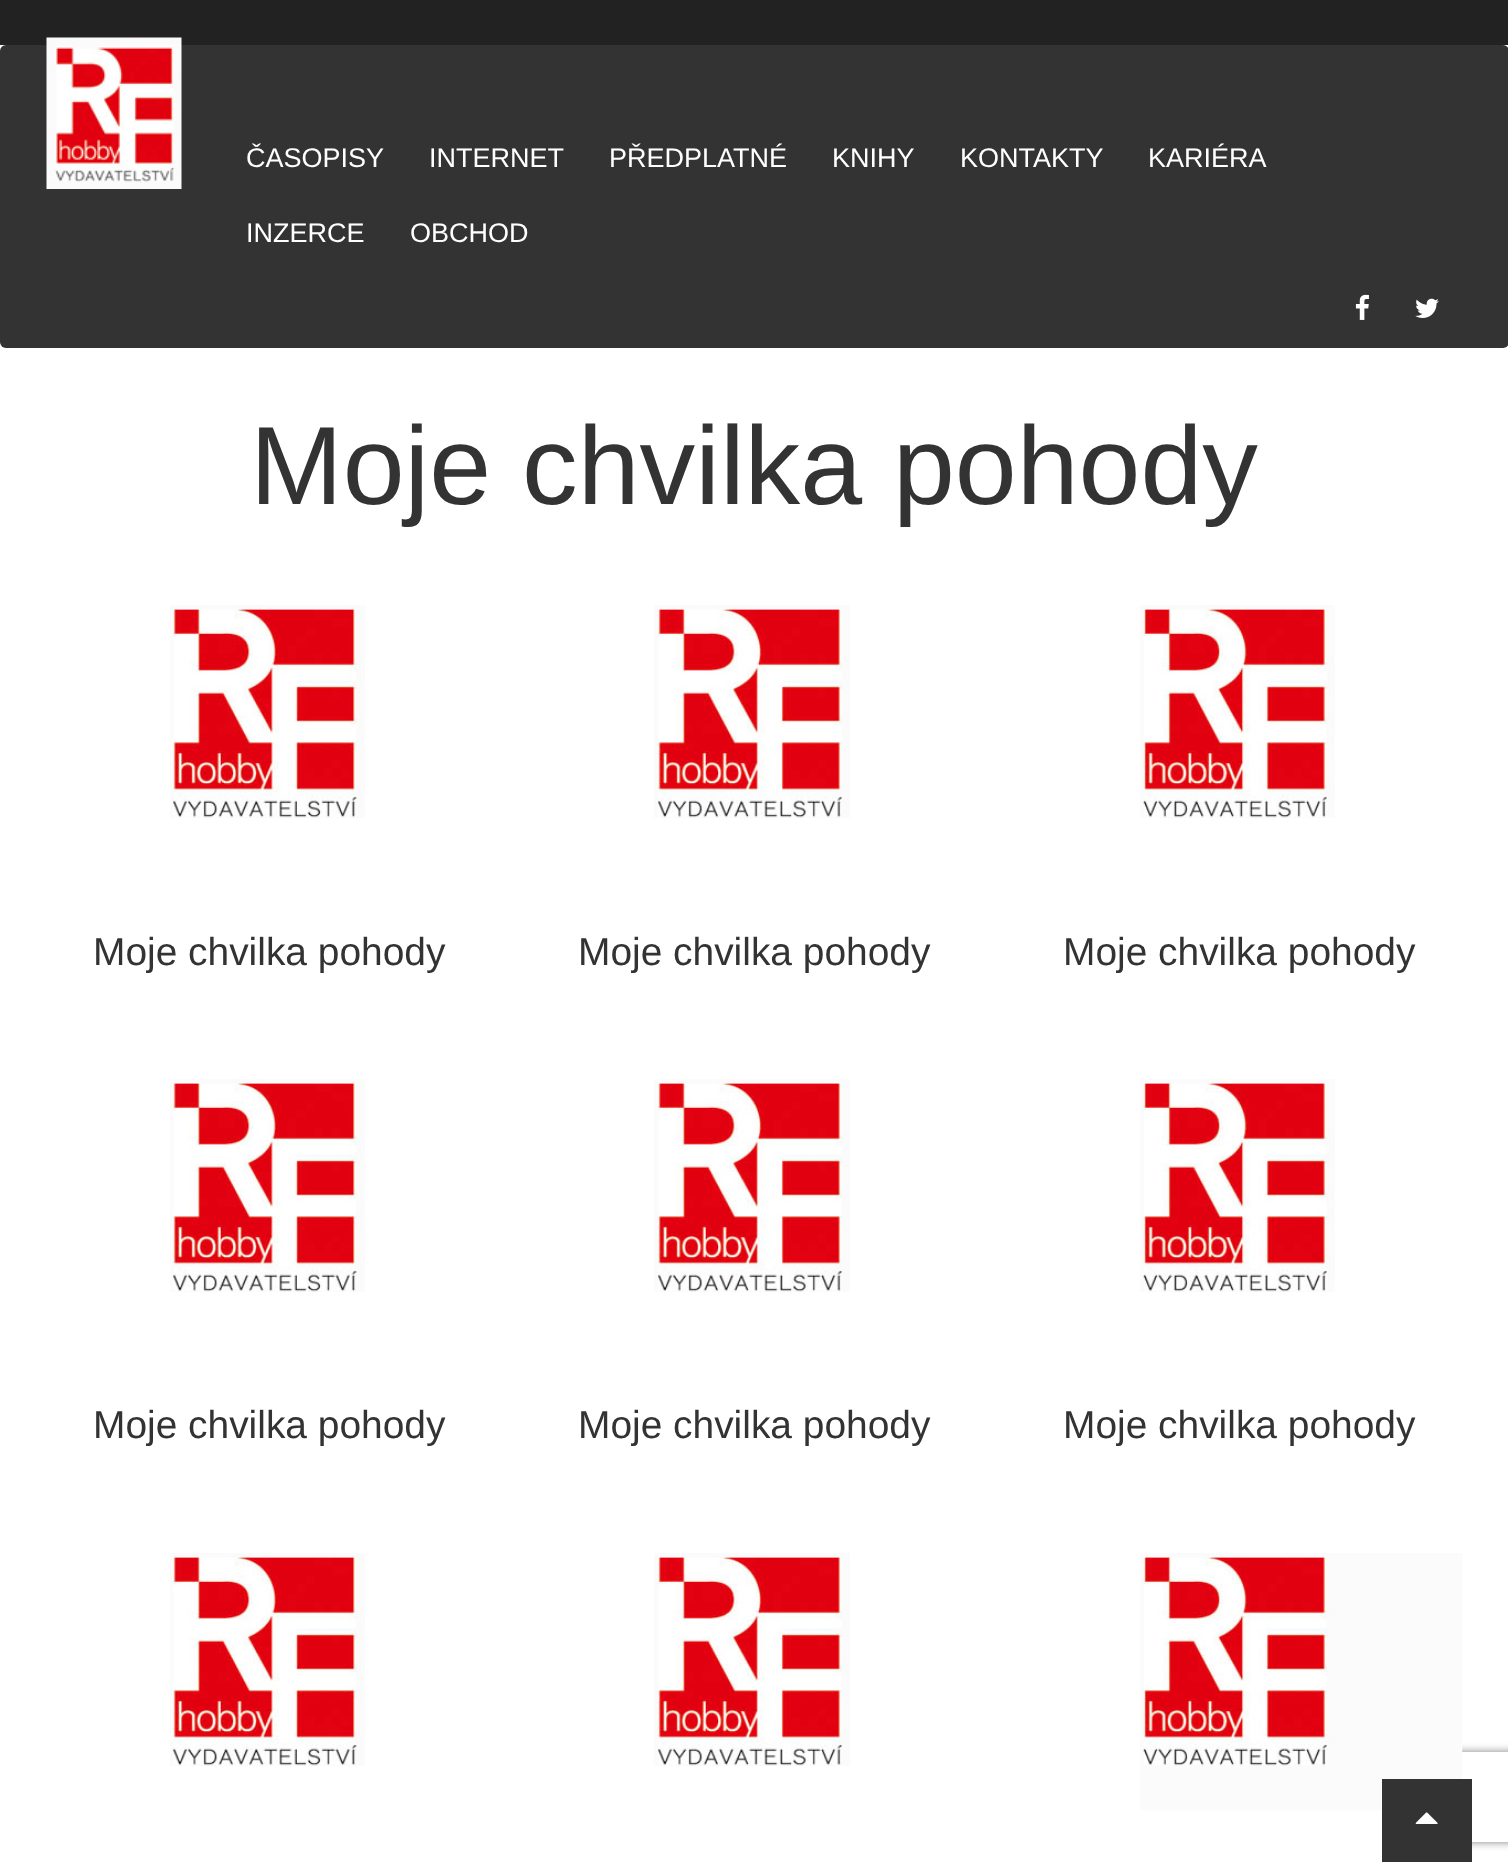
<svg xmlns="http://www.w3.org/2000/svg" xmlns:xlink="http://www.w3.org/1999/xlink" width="1508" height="1862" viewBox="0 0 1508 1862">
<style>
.cls-1{font:27px Liberation Sans;fill:#ffffff}
.cls-2{font:111.25px Liberation Sans;fill:#333333}
.cls-3{font:38.9px Liberation Sans;fill:#333333}
</style>
<defs>
<clipPath id="clip1"><path d="M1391 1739H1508V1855H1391ZM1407 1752H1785C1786.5 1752 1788 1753.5 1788 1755V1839C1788 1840.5 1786.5 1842 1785 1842H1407C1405.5 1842 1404 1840.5 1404 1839V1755C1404 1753.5 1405.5 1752 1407 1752Z" clip-rule="evenodd"/></clipPath>
</defs>
<rect width="100%" height="100%" fill="#ffffff"/>
<rect fill="#222222" x="0" y="0" width="1508" height="45"/>
<rect fill="#333333" x="0" y="45" width="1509" height="303" rx="6"/>
<image xlink:href="image0.png" x="46" y="37" width="136" height="152"/>
<image xlink:href="image1.png" x="1355" y="294" width="14" height="26"/>
<image xlink:href="image2.png" x="1415" y="298" width="24" height="20"/>
<image xlink:href="image3.png" x="170" y="605" width="195" height="213"/>
<image xlink:href="image4.png" x="654" y="605" width="196" height="213"/>
<image xlink:href="image5.png" x="1140" y="605" width="195" height="213"/>
<image xlink:href="image3.png" x="170" y="1079" width="195" height="213"/>
<image xlink:href="image4.png" x="654" y="1079" width="196" height="213"/>
<image xlink:href="image5.png" x="1140" y="1079" width="195" height="213"/>
<image xlink:href="image3.png" x="170" y="1553" width="195" height="213"/>
<image xlink:href="image4.png" x="654" y="1553" width="196" height="213"/>
<g clip-path="url(#clip1)">
<rect fill="#808080" filter="blur(4px)" x="1404" y="1752" width="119" height="90" rx="3"/>
</g>
<image xlink:href="image6.png" x="1140" y="1553" width="323" height="258"/>
<rect fill="#333333" x="1382" y="1779" width="90" height="83"/>
<image xlink:href="image7.png" x="1415" y="1812" width="23" height="12"/>
<text class="cls-1" x="246" y="167">ČASOPISY</text>
<text class="cls-1" x="429" y="167">INTERNET</text>
<text class="cls-1" x="609" y="167">PŘEDPLATNÉ</text>
<text class="cls-1" x="832" y="167">KNIHY</text>
<text class="cls-1" x="960" y="167">KONTAKTY</text>
<text class="cls-1" x="1148" y="167">KARIÉRA</text>
<text class="cls-1" x="246" y="242">INZERCE</text>
<text class="cls-1" x="410" y="242">OBCHOD</text>
<text class="cls-2" x="250" y="504">Moje chvilka pohody</text>
<text class="cls-3" x="93" y="965">Moje chvilka pohody</text>
<text class="cls-3" x="578" y="965">Moje chvilka pohody</text>
<text class="cls-3" x="1063" y="965">Moje chvilka pohody</text>
<text class="cls-3" x="93" y="1438">Moje chvilka pohody</text>
<text class="cls-3" x="578" y="1438">Moje chvilka pohody</text>
<text class="cls-3" x="1063" y="1438">Moje chvilka pohody</text>
</svg>
